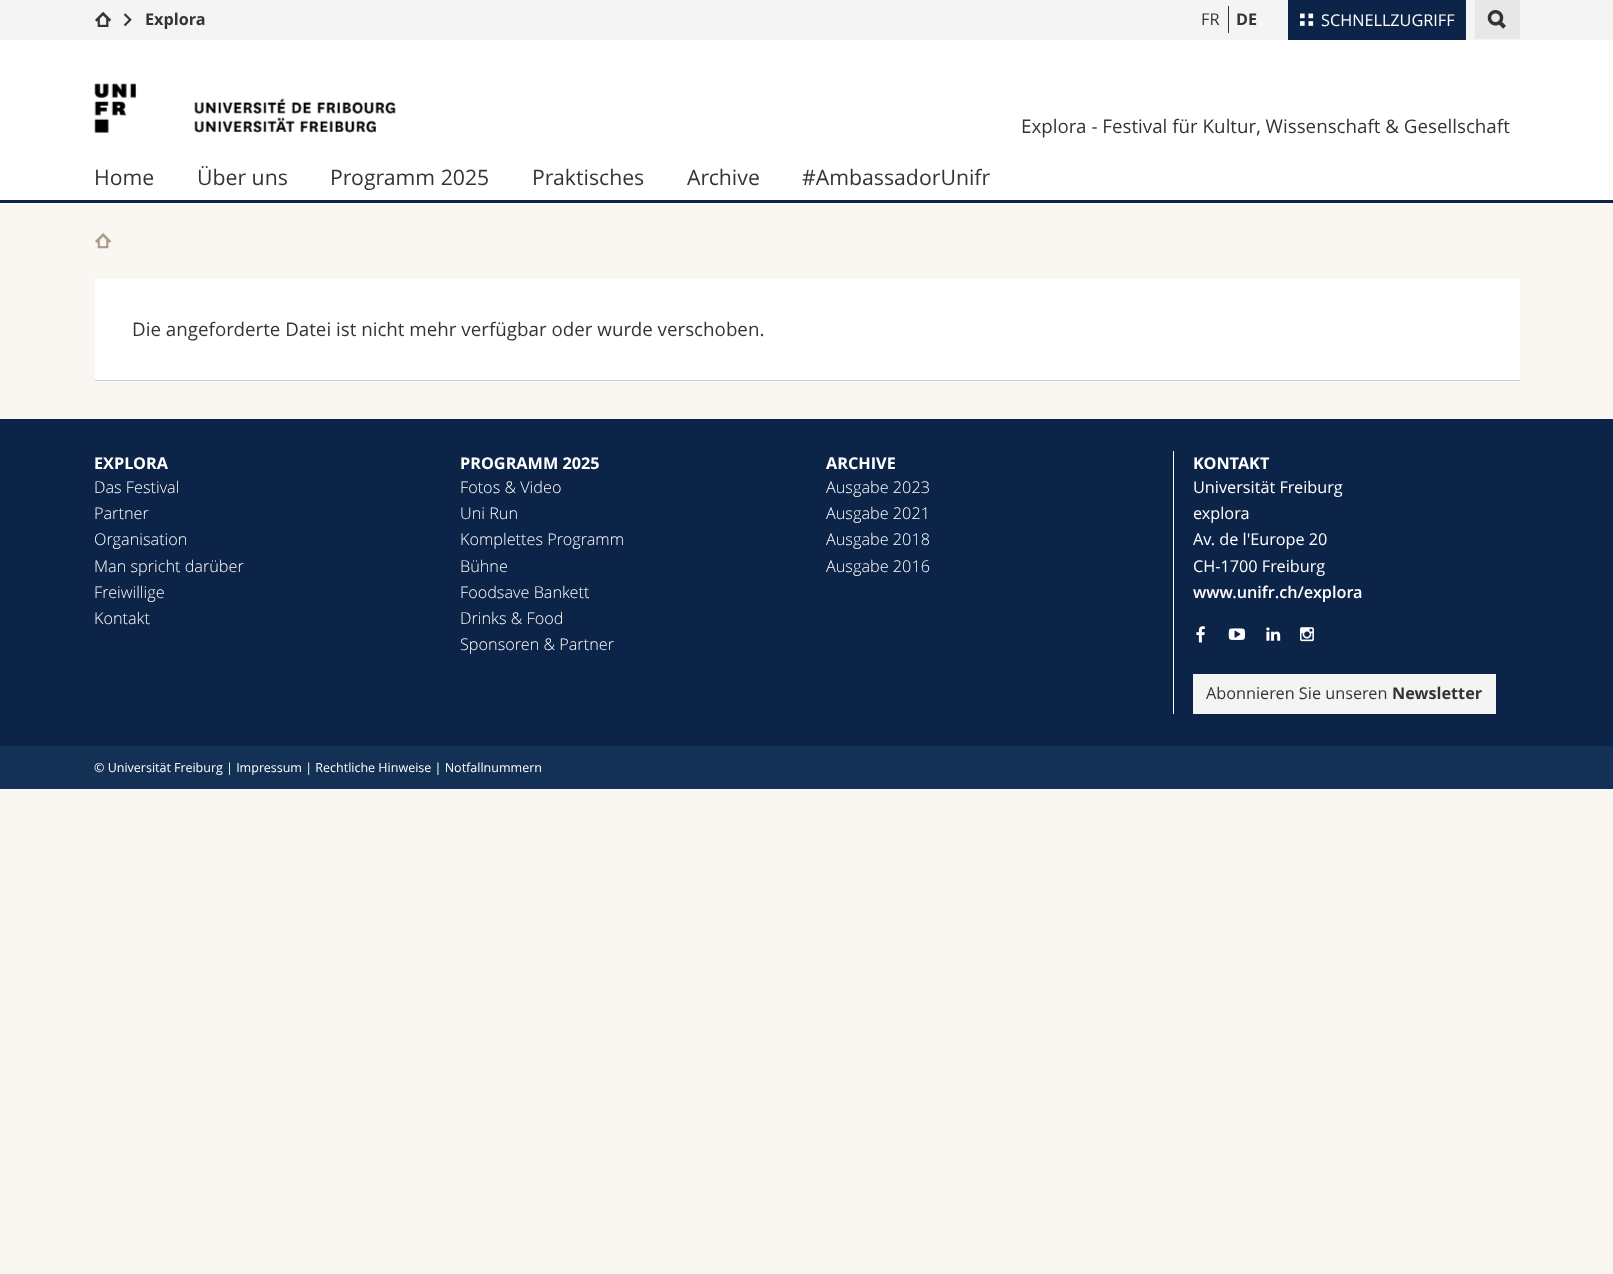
<svg xmlns="http://www.w3.org/2000/svg" xmlns:xlink="http://www.w3.org/1999/xlink" width="1613" height="1274" viewBox="0 0 1613 1274">
<style>
.cls-1{font:bold 16.25px Open Sans;fill:#343434}
.cls-2{font:16.25px Open Sans;fill:#343434}
.cls-3{font:16.25px Open Sans;fill:#ffffff}
.cls-4{font:18.75px Open Sans;fill:#343434}
.cls-5{font:21.25px Open Sans;fill:#343434}
.cls-6{font:bold 16.25px Open Sans;fill:#ffffff}
.cls-7{font:300 16.25px Open Sans;fill:#ffffff}
.cls-8{font:600 16.25px Open Sans;fill:#ffffff}
.cls-9{font:12.5px Open Sans;fill:#ffffff}
</style>
<rect width="100%" height="100%" fill="#faf7f2"/>
<rect fill="#f4f4f4" x="0" y="0" width="1613" height="40"/>
<image xlink:href="image0.png" x="95" y="11" width="17" height="16"/>
<image xlink:href="image1.png" x="123" y="13" width="9" height="14"/>
<rect fill="#343434" x="1228" y="6" width="1" height="27"/>
<rect fill="#0c2447" x="1288" y="0" width="178" height="40"/>
<image xlink:href="image2.png" x="1300" y="13" width="14" height="13"/>
<rect fill="#e8e8e8" x="1475" y="0" width="45" height="39"/>
<image xlink:href="image3.png" x="1487" y="10" width="19" height="19"/>
<rect fill="#ffffff" x="0" y="40" width="1613" height="160"/>
<image xlink:href="image4.png" x="94" y="83" width="302" height="50"/>
<rect fill="#0c2447" x="0" y="200" width="1613" height="3"/>
<image xlink:href="image5.png" x="95" y="233" width="17" height="16"/>
<rect fill="#ffffff" x="95" y="279" width="1425" height="101"/>
<rect fill="#cbcbcb" x="95" y="380" width="1425" height="1"/>
<rect fill="#0c2447" x="0" y="419" width="1613" height="327"/>
<rect fill="#ffffff" x="1173" y="451" width="1" height="263"/>
<image xlink:href="image6.png" x="1196" y="626" width="9" height="17"/>
<image xlink:href="image7.png" x="1228" y="628" width="17" height="12"/>
<image xlink:href="image8.png" x="1266" y="627" width="15" height="14"/>
<image xlink:href="image9.png" x="1300" y="627" width="14" height="15"/>
<rect fill="#f4f4f4" x="1193" y="674" width="303" height="40"/>
<rect fill="#123154" x="0" y="746" width="1613" height="43"/>
<text class="cls-1" x="145" y="25">Explora</text>
<text class="cls-2" x="1201" y="25">FR</text>
<text class="cls-1" x="1236" y="25">DE</text>
<text class="cls-3" x="1321" y="26">SCHNELLZUGRIFF</text>
<text class="cls-4" x="1021" y="133">Explora - Festival für Kultur, Wissenschaft &amp; Gesellschaft</text>
<text class="cls-5" x="94" y="185">Home</text>
<text class="cls-5" x="197" y="185">Über uns</text>
<text class="cls-5" x="330" y="185">Programm 2025</text>
<text class="cls-5" x="532" y="185">Praktisches</text>
<text class="cls-5" x="687" y="185">Archive</text>
<text class="cls-5" x="802" y="185">#AmbassadorUnifr</text>
<text class="cls-4" x="132" y="336">Die angeforderte Datei ist nicht mehr verfügbar oder wurde verschoben.</text>
<text class="cls-6" x="94" y="469">EXPLORA</text>
<text class="cls-7"><tspan x="94" y="493">Das Festival</tspan><tspan x="94" y="519">Partner</tspan><tspan x="94" y="545">Organisation</tspan><tspan x="94" y="572">Man spricht darüber</tspan><tspan x="94" y="598">Freiwillige</tspan><tspan x="94" y="624">Kontakt</tspan></text>
<text class="cls-6" x="460" y="469">PROGRAMM 2025</text>
<text class="cls-7"><tspan x="460" y="493">Fotos &amp; Video</tspan><tspan x="460" y="519">Uni Run</tspan><tspan x="460" y="545">Komplettes Programm</tspan><tspan x="460" y="572">Bühne</tspan><tspan x="460" y="598">Foodsave Bankett</tspan><tspan x="460" y="624">Drinks &amp; Food</tspan><tspan x="460" y="650">Sponsoren &amp; Partner</tspan></text>
<text class="cls-6" x="826" y="469">ARCHIVE</text>
<text class="cls-7"><tspan x="826" y="493">Ausgabe 2023</tspan><tspan x="826" y="519">Ausgabe 2021</tspan><tspan x="826" y="545">Ausgabe 2018</tspan><tspan x="826" y="572">Ausgabe 2016</tspan></text>
<text class="cls-6" x="1193" y="469">KONTAKT</text>
<text class="cls-3"><tspan x="1193" y="493">Universität Freiburg</tspan><tspan x="1193" y="519">explora</tspan><tspan x="1193" y="545">Av. de l'Europe 20</tspan><tspan x="1193" y="572">CH-1700 Freiburg</tspan></text>
<text class="cls-8" x="1193" y="598">www.unifr.ch/explora</text>
<text class="cls-2" x="1206" y="699">Abonnieren Sie unseren</text>
<text class="cls-1" x="1392" y="699">Newsletter</text>
<text class="cls-9" x="94" y="772">© Universität Freiburg | Impressum | Rechtliche Hinweise | Notfallnummern</text>
</svg>
